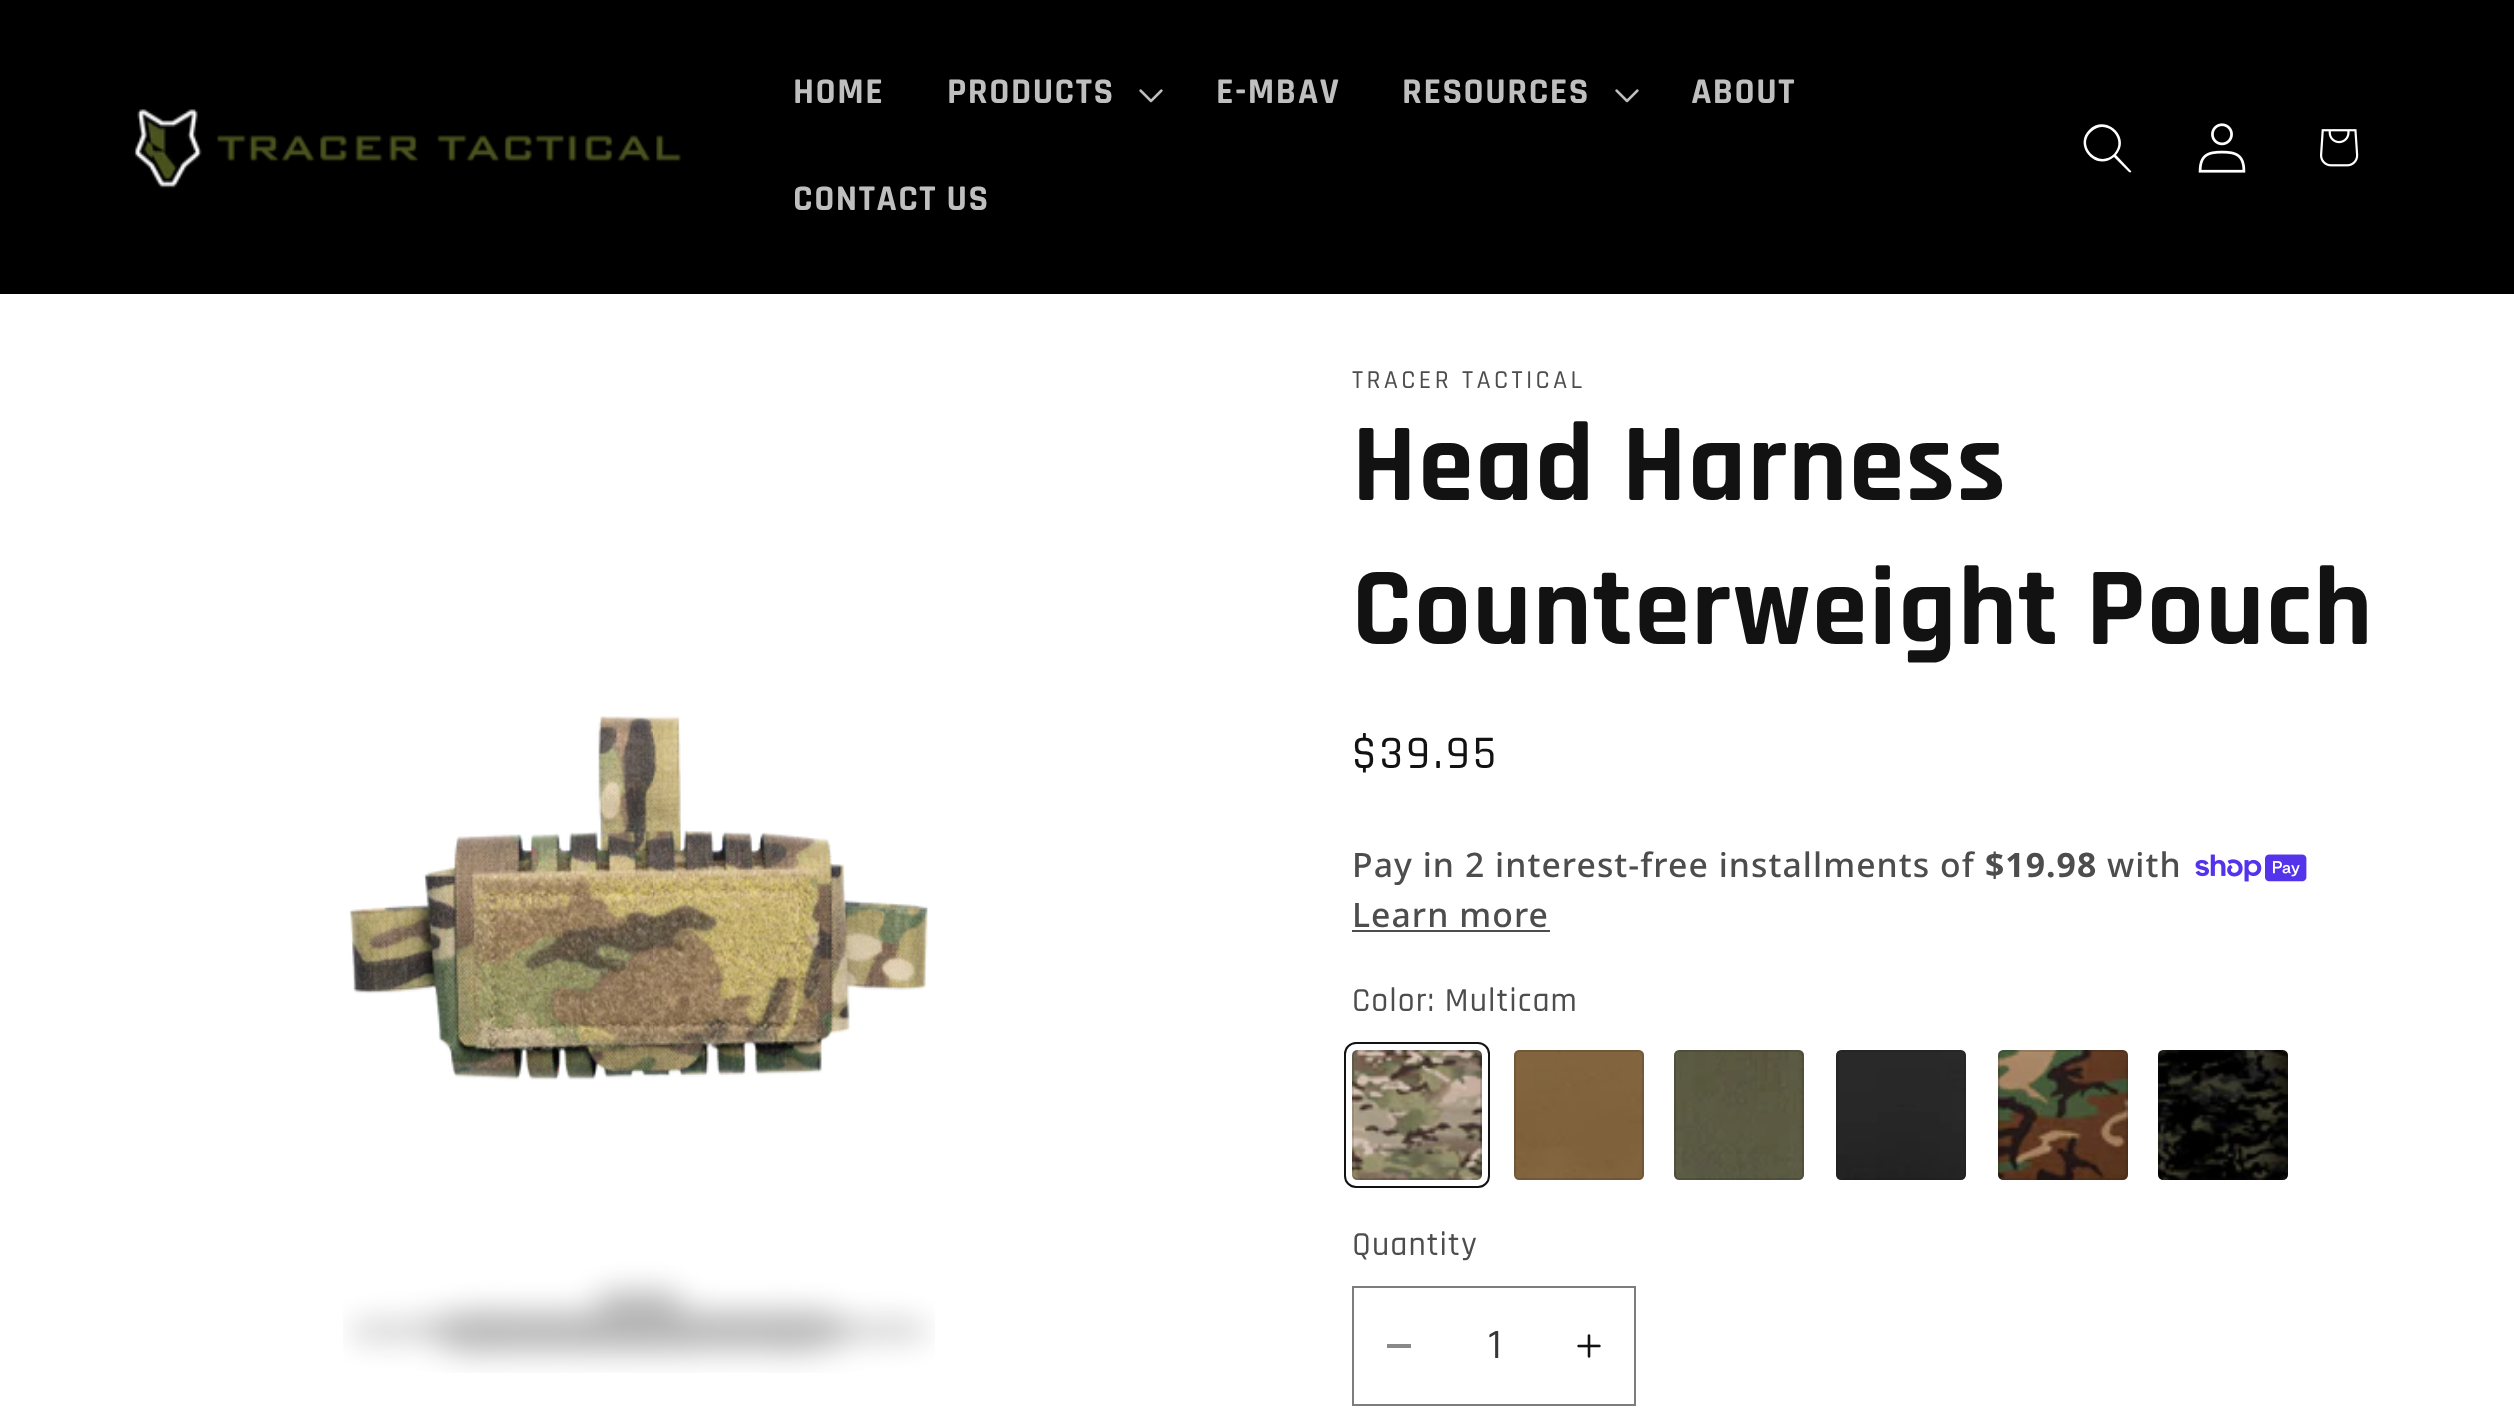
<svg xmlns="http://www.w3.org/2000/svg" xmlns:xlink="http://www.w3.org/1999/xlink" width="2514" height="1410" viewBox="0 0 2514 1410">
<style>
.cls-1{font:bold 36.5px Rajdhani;letter-spacing:1.5px;fill:#bfbfbf}
.cls-2{font:500 26px Rajdhani;letter-spacing:3.4px;fill:#4d4d4d}
.cls-3{font:bold 112px Rajdhani;letter-spacing:1.7px;fill:#121212}
.cls-4{font:500 47px Rajdhani;letter-spacing:3.4px;fill:#121212}
.cls-5{font:500 33.75px Noto Sans;letter-spacing:1.05px;fill:#4d4d4d}
.cls-6{font:bold 33.75px Noto Sans;letter-spacing:1.05px;fill:#4d4d4d}
.cls-7{font:500 33.75px Rajdhani;letter-spacing:1.05px;fill:#4d4d4d}
.cls-8{font:500 42px Rajdhani;fill:#363636}
</style>
<rect width="100%" height="100%" fill="#ffffff"/>
<rect fill="#000000" x="0" y="0" width="2514" height="294"/>
<image xlink:href="image0.png" x="133" y="109" width="548" height="80"/>
<image xlink:href="image1.png" x="1139" y="89" width="24" height="14"/>
<image xlink:href="image1.png" x="1615" y="89" width="24" height="14"/>
<path fill="#ffffff" fill-rule="evenodd" d="M2114 154C2099 169 2076 146 2091 132C2106 117 2128 139 2114 154M2114 157C2096 172 2073 146 2089 130C2106 113 2132 138 2116 155L2131 171C2132 172 2130 173 2129 172Z"/>
<image xlink:href="image2.png" x="2198" y="123" width="48" height="50"/>
<image xlink:href="image3.png" x="2320" y="129" width="39" height="38"/>
<image xlink:href="image4.png" x="343" y="716" width="592" height="657"/>
<image xlink:href="image5.png" x="2195" y="854" width="112" height="28"/>
<rect fill="#4d4d4d" x="1352" y="930" width="198" height="2"/>
<image xlink:href="image6.png" x="1352" y="1050" width="130" height="130"/>
<rect fill="none" stroke="#121212" stroke-opacity="0.15" stroke-width="2" x="1353" y="1051" width="128" height="128" rx="4"/>
<rect fill="none" stroke="#121212" stroke-width="2" x="1345" y="1043" width="144" height="144" rx="11"/>
<image xlink:href="image7.png" x="1514" y="1050" width="130" height="130"/>
<rect fill="none" stroke="#121212" stroke-opacity="0.15" stroke-width="2" x="1515" y="1051" width="128" height="128" rx="4"/>
<image xlink:href="image8.png" x="1674" y="1050" width="130" height="130"/>
<rect fill="none" stroke="#121212" stroke-opacity="0.15" stroke-width="2" x="1675" y="1051" width="128" height="128" rx="4"/>
<image xlink:href="image9.png" x="1836" y="1050" width="130" height="130"/>
<rect fill="none" stroke="#121212" stroke-opacity="0.15" stroke-width="2" x="1837" y="1051" width="128" height="128" rx="4"/>
<image xlink:href="image10.png" x="1998" y="1050" width="130" height="130"/>
<rect fill="none" stroke="#121212" stroke-opacity="0.15" stroke-width="2" x="1999" y="1051" width="128" height="128" rx="4"/>
<image xlink:href="image11.png" x="2158" y="1050" width="130" height="130"/>
<rect fill="none" stroke="#121212" stroke-opacity="0.15" stroke-width="2" x="2159" y="1051" width="128" height="128" rx="4"/>
<rect fill="#898989" x="1387" y="1344" width="24" height="4"/>
<image xlink:href="image12.png" x="1577" y="1334" width="24" height="24"/>
<rect fill="none" stroke="#7d7d7d" stroke-width="2" x="1353" y="1287" width="282" height="118"/>
<text class="cls-1" x="793" y="103">HOME</text>
<text class="cls-1" x="947" y="103">PRODUCTS</text>
<text class="cls-1" x="1216" y="103">E-MBAV</text>
<text class="cls-1" x="1402" y="103">RESOURCES</text>
<text class="cls-1" x="1691" y="103">ABOUT</text>
<text class="cls-1" x="793" y="210">CONTACT US</text>
<text class="cls-2" x="1352" y="388">TRACER TACTICAL</text>
<text class="cls-3"><tspan x="1352" y="500">Head Harness</tspan><tspan x="1352" y="644">Counterweight Pouch</tspan></text>
<text class="cls-4" x="1352" y="768">$39.95</text>
<text class="cls-5" x="1352" y="877">Pay in 2 interest-free installments of</text>
<text class="cls-6" x="1985" y="877">$19.98</text>
<text class="cls-5" x="2107" y="877">with</text>
<text class="cls-5" x="1352" y="927">Learn more</text>
<text class="cls-7" x="1352" y="1011">Color: Multicam</text>
<text class="cls-7" x="1352" y="1255">Quantity</text>
<text class="cls-8" x="1488" y="1358">1</text>
</svg>
